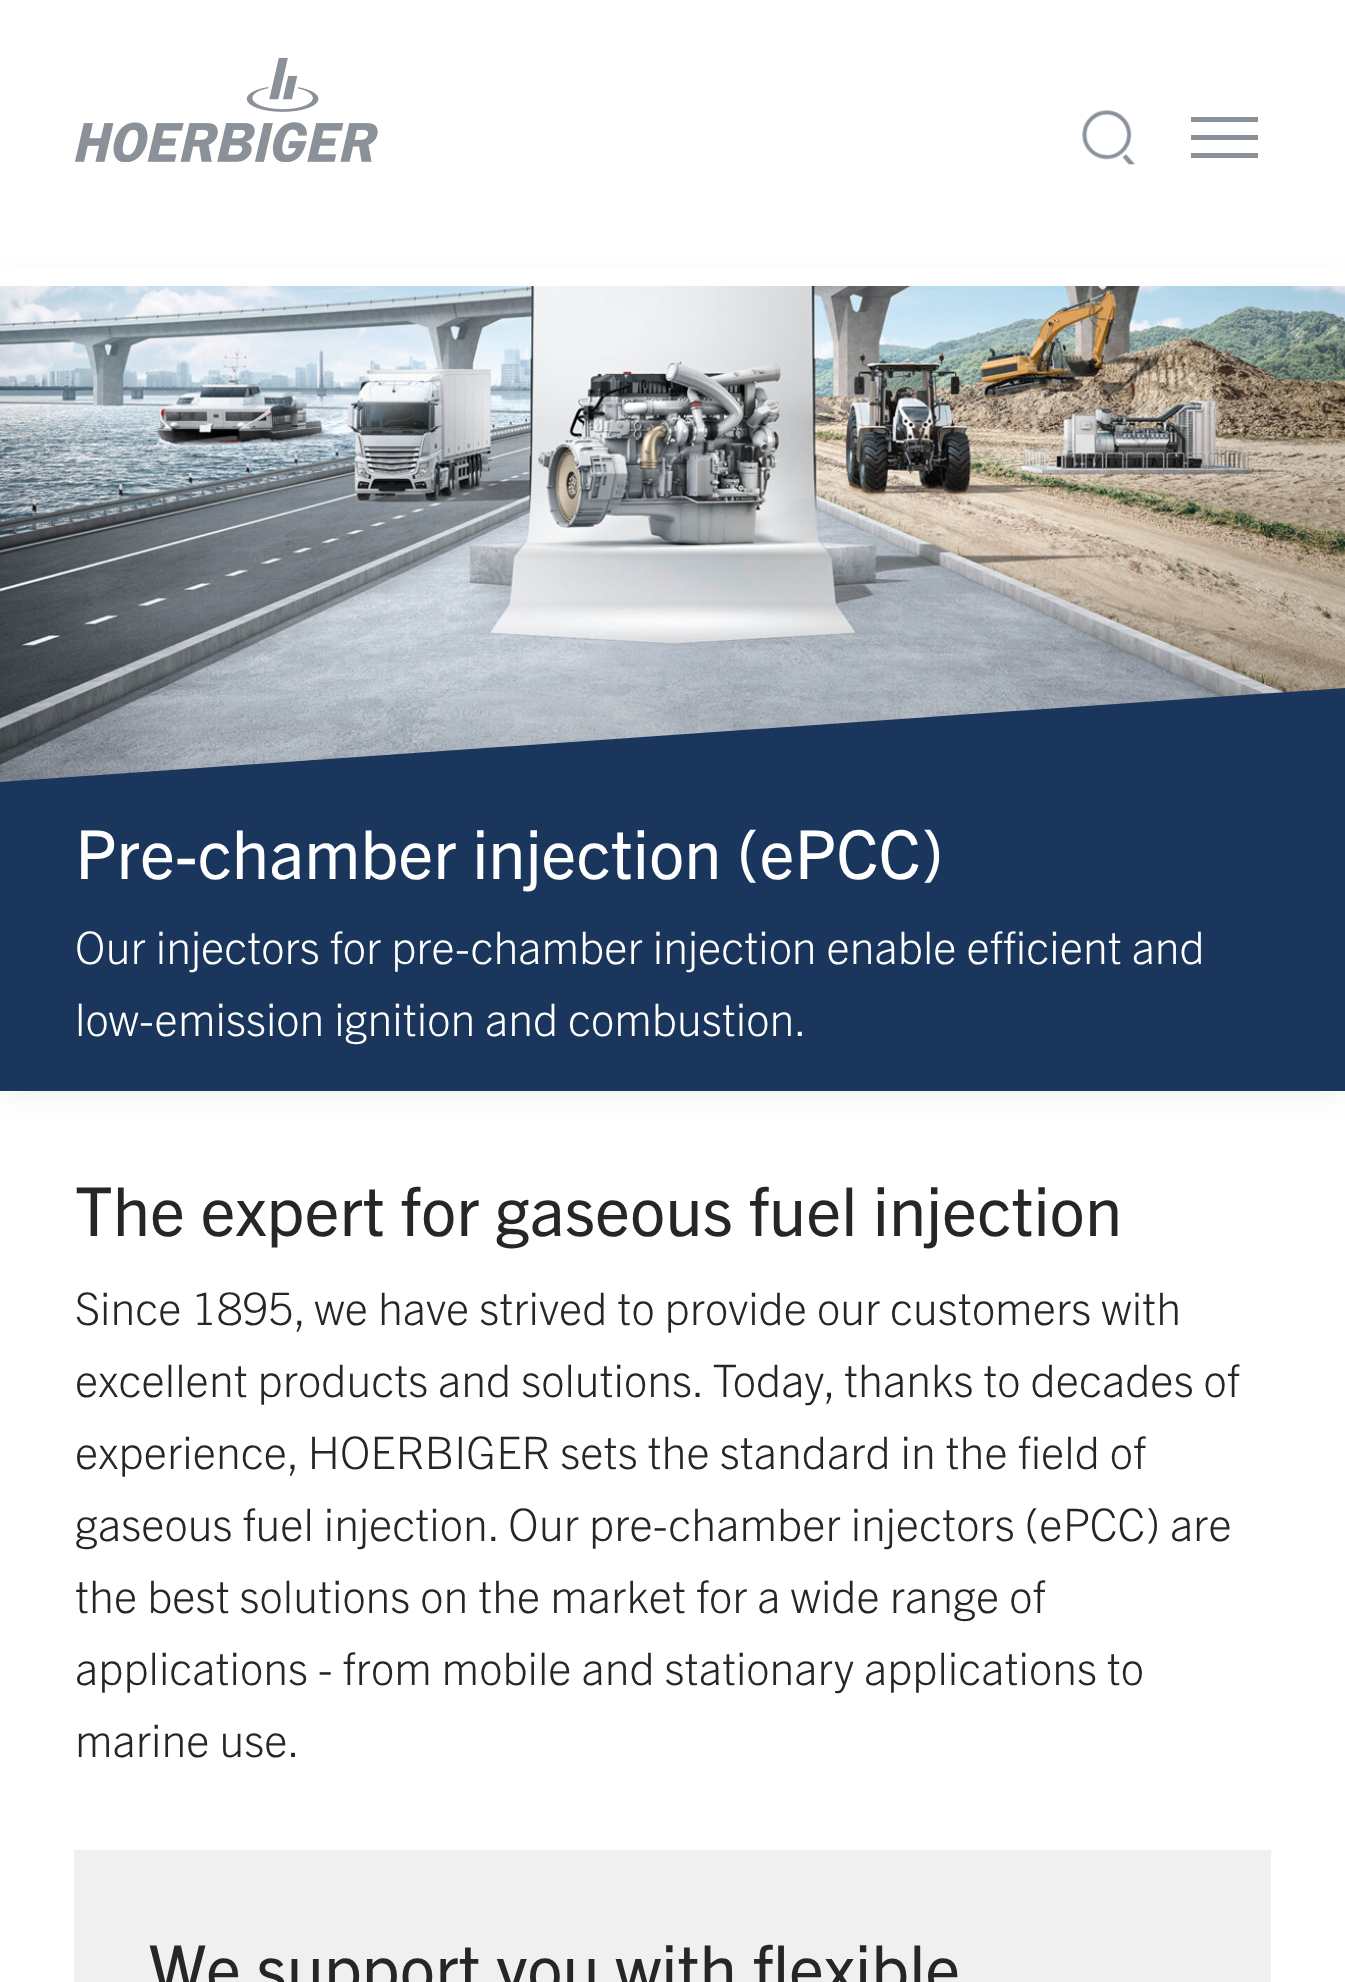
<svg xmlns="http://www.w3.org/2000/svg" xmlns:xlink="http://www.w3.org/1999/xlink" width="1345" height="1982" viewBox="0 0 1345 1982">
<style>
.cls-1{font:67.5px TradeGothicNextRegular;fill:#ffffff}
.cls-2{font:300 45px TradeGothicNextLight;fill:#ffffff}
.cls-3{font:67.5px TradeGothicNextRegular;fill:#262626}
.cls-4{font:300 45px TradeGothicNextLight;fill:#262626}
</style>
<defs>
<clipPath id="clip1"><rect x="0" y="623" width="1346" height="468"/></clipPath>
</defs>
<rect width="100%" height="100%" fill="#ffffff"/>
<rect fill="#000000" fill-opacity="0.08" filter="blur(16px)" x="0" y="286" width="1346" height="805"/>
<rect fill="#ffffff" x="0" y="268" width="1345" height="18"/>
<image xlink:href="image0.png" x="75" y="57" width="303" height="105"/>
<image xlink:href="image1.png" x="1082" y="110" width="54" height="55"/>
<rect fill="#8a9199" x="1191" y="153" width="67" height="5"/>
<rect fill="#8a9199" x="1191" y="135" width="67" height="5"/>
<rect fill="#8a9199" x="1191" y="117" width="67" height="5"/>
<image xlink:href="image2.png" x="0" y="286" width="1345" height="496"/>
<g clip-path="url(#clip1)">
<path fill="#1b365d" d="M0 782L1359 687V1391L0 1486Z"/>
</g>
<rect fill="#f0f0f0" x="74" y="1850" width="1197" height="132"/>
<text class="cls-1" x="75" y="879">Pre-chamber injection (ePCC)</text>
<text class="cls-2"><tspan x="75" y="964">Our injectors for pre-chamber injection enable efficient and</tspan><tspan x="75" y="1036">low-emission ignition and combustion.</tspan></text>
<text class="cls-3" x="75" y="1236">The expert for gaseous fuel injection</text>
<text class="cls-4"><tspan x="75" y="1325">Since 1895, we have strived to provide our customers with</tspan><tspan x="75" y="1397">excellent products and solutions. Today, thanks to decades of</tspan><tspan x="75" y="1469">experience, HOERBIGER sets the standard in the field of</tspan><tspan x="75" y="1541">gaseous fuel injection. Our pre-chamber injectors (ePCC) are</tspan><tspan x="75" y="1613">the best solutions on the market for a wide range of</tspan><tspan x="75" y="1685">applications - from mobile and stationary applications to</tspan><tspan x="75" y="1757">marine use.</tspan></text>
<text class="cls-3" x="149" y="1994">We support you with flexible</text>
</svg>
